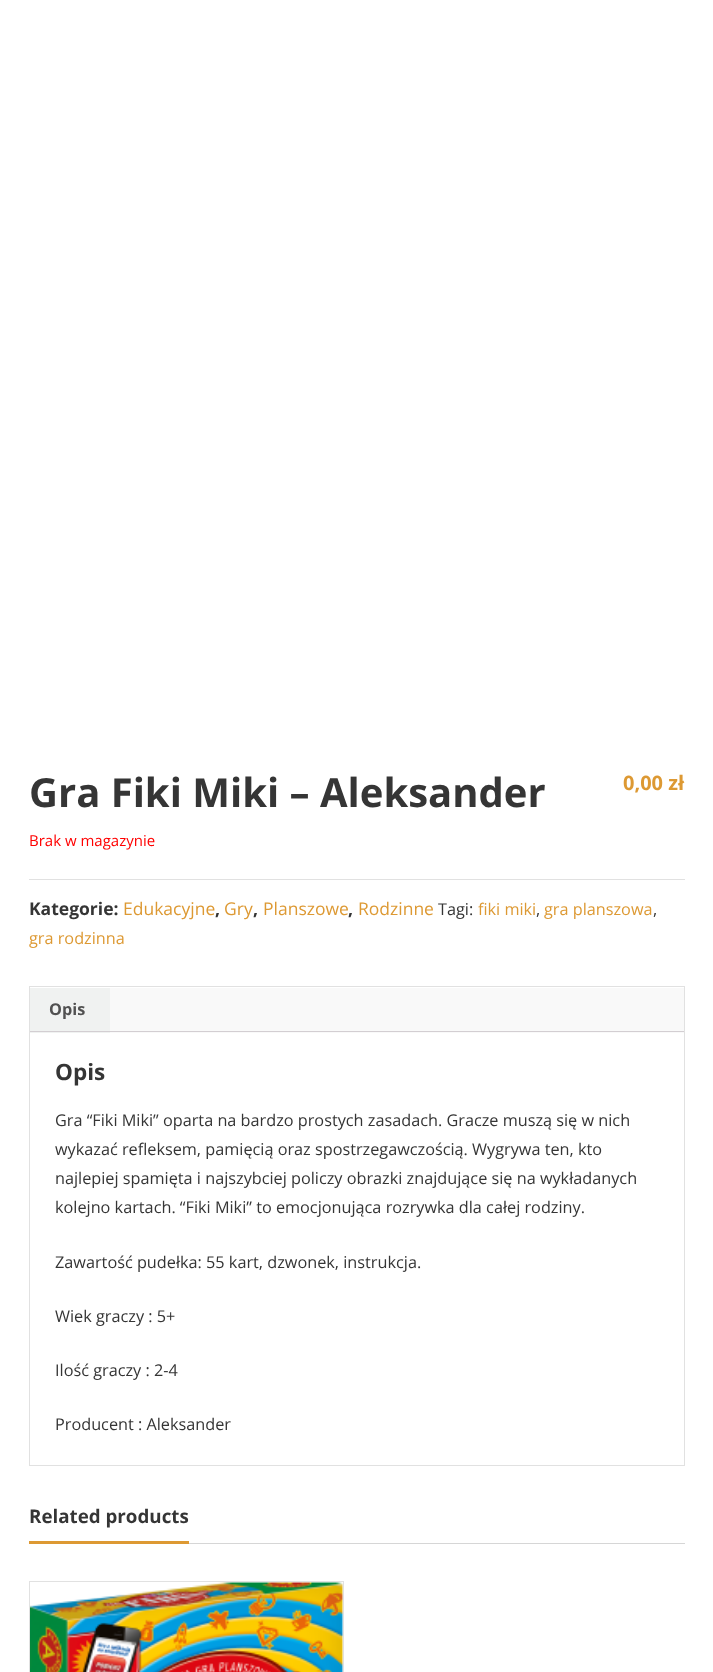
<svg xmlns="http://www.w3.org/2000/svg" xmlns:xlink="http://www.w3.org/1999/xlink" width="713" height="1672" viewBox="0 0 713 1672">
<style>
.cls-1{font:bold 40px Open Sans;fill:#353535}
.cls-2{font:bold 20px Open Sans;fill:#dd9933}
.cls-3{font:15px Open Sans;fill:#ff0000}
.cls-4{font:bold 17.5px Open Sans;fill:#353535}
.cls-5{font:17.5px Open Sans;fill:#dd9933}
.cls-6{font:16.25px Open Sans;fill:#353535}
.cls-7{font:16.25px Open Sans;fill:#dd9933}
.cls-8{font:bold 16.25px Open Sans;fill:#515151}
.cls-9{font:bold 22.5px Open Sans;fill:#353535}
.cls-10{font:bold 18.75px Open Sans;fill:#353535}
</style>
<rect width="100%" height="100%" fill="#ffffff"/>
<rect fill="#e1e1e1" x="29" y="879" width="656" height="1"/>
<rect fill="none" stroke="#e1e1e1" x="29.5" y="986.5" width="655" height="479"/>
<rect fill="#f9f9f9" x="110" y="988" width="574" height="45"/>
<rect fill="#f0f2f1" x="30" y="988" width="80" height="45"/>
<rect fill="#d3ced2" x="30" y="1031" width="654" height="1"/>
<rect fill="#d6d6d6" x="189" y="1543" width="496" height="1"/>
<rect fill="#dd9933" x="29" y="1541" width="160" height="3"/>
<rect fill="none" stroke="#e1e1e1" x="29.5" y="1581.5" width="314" height="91"/>
<image xlink:href="image0.png" x="30" y="1582" width="313" height="90"/>
<text class="cls-1" x="29" y="807">Gra Fiki Miki – Aleksander</text>
<text class="cls-2" x="623" y="790">0,00 zł</text>
<text class="cls-3" x="29" y="846">Brak w magazynie</text>
<text class="cls-4" x="29" y="915">Kategorie:</text>
<text class="cls-5" x="123" y="915">Edukacyjne</text>
<text class="cls-4" x="215" y="915">,</text>
<text class="cls-5" x="224" y="915">Gry</text>
<text class="cls-4" x="253" y="915">,</text>
<text class="cls-5" x="263" y="915">Planszowe</text>
<text class="cls-4" x="348" y="915">,</text>
<text class="cls-5" x="358" y="915">Rodzinne</text>
<text class="cls-6" x="438" y="915">Tagi:</text>
<text class="cls-7" x="478" y="915">fiki miki</text>
<text class="cls-6" x="536" y="915">,</text>
<text class="cls-7" x="544" y="915">gra planszowa</text>
<text class="cls-6" x="653" y="915">,</text>
<text class="cls-7" x="29" y="944">gra rodzinna</text>
<text class="cls-8" x="49" y="1015">Opis</text>
<text class="cls-9" x="55" y="1080">Opis</text>
<text class="cls-6"><tspan x="55" y="1126">Gra “Fiki Miki” oparta na bardzo prostych zasadach. Gracze muszą się w nich</tspan><tspan x="55" y="1155">wykazać refleksem, pamięcią oraz spostrzegawczością. Wygrywa ten, kto</tspan><tspan x="55" y="1184">najlepiej spamięta i najszybciej policzy obrazki znajdujące się na wykładanych</tspan><tspan x="55" y="1213">kolejno kartach. “Fiki Miki” to emocjonująca rozrywka dla całej rodziny.</tspan></text>
<text class="cls-6" x="55" y="1268">Zawartość pudełka: 55 kart, dzwonek, instrukcja.</text>
<text class="cls-6" x="55" y="1322">Wiek graczy : 5+</text>
<text class="cls-6" x="55" y="1376">Ilość graczy : 2-4</text>
<text class="cls-6" x="55" y="1430">Producent : Aleksander</text>
<text class="cls-10" x="29" y="1523">Related products</text>
</svg>
